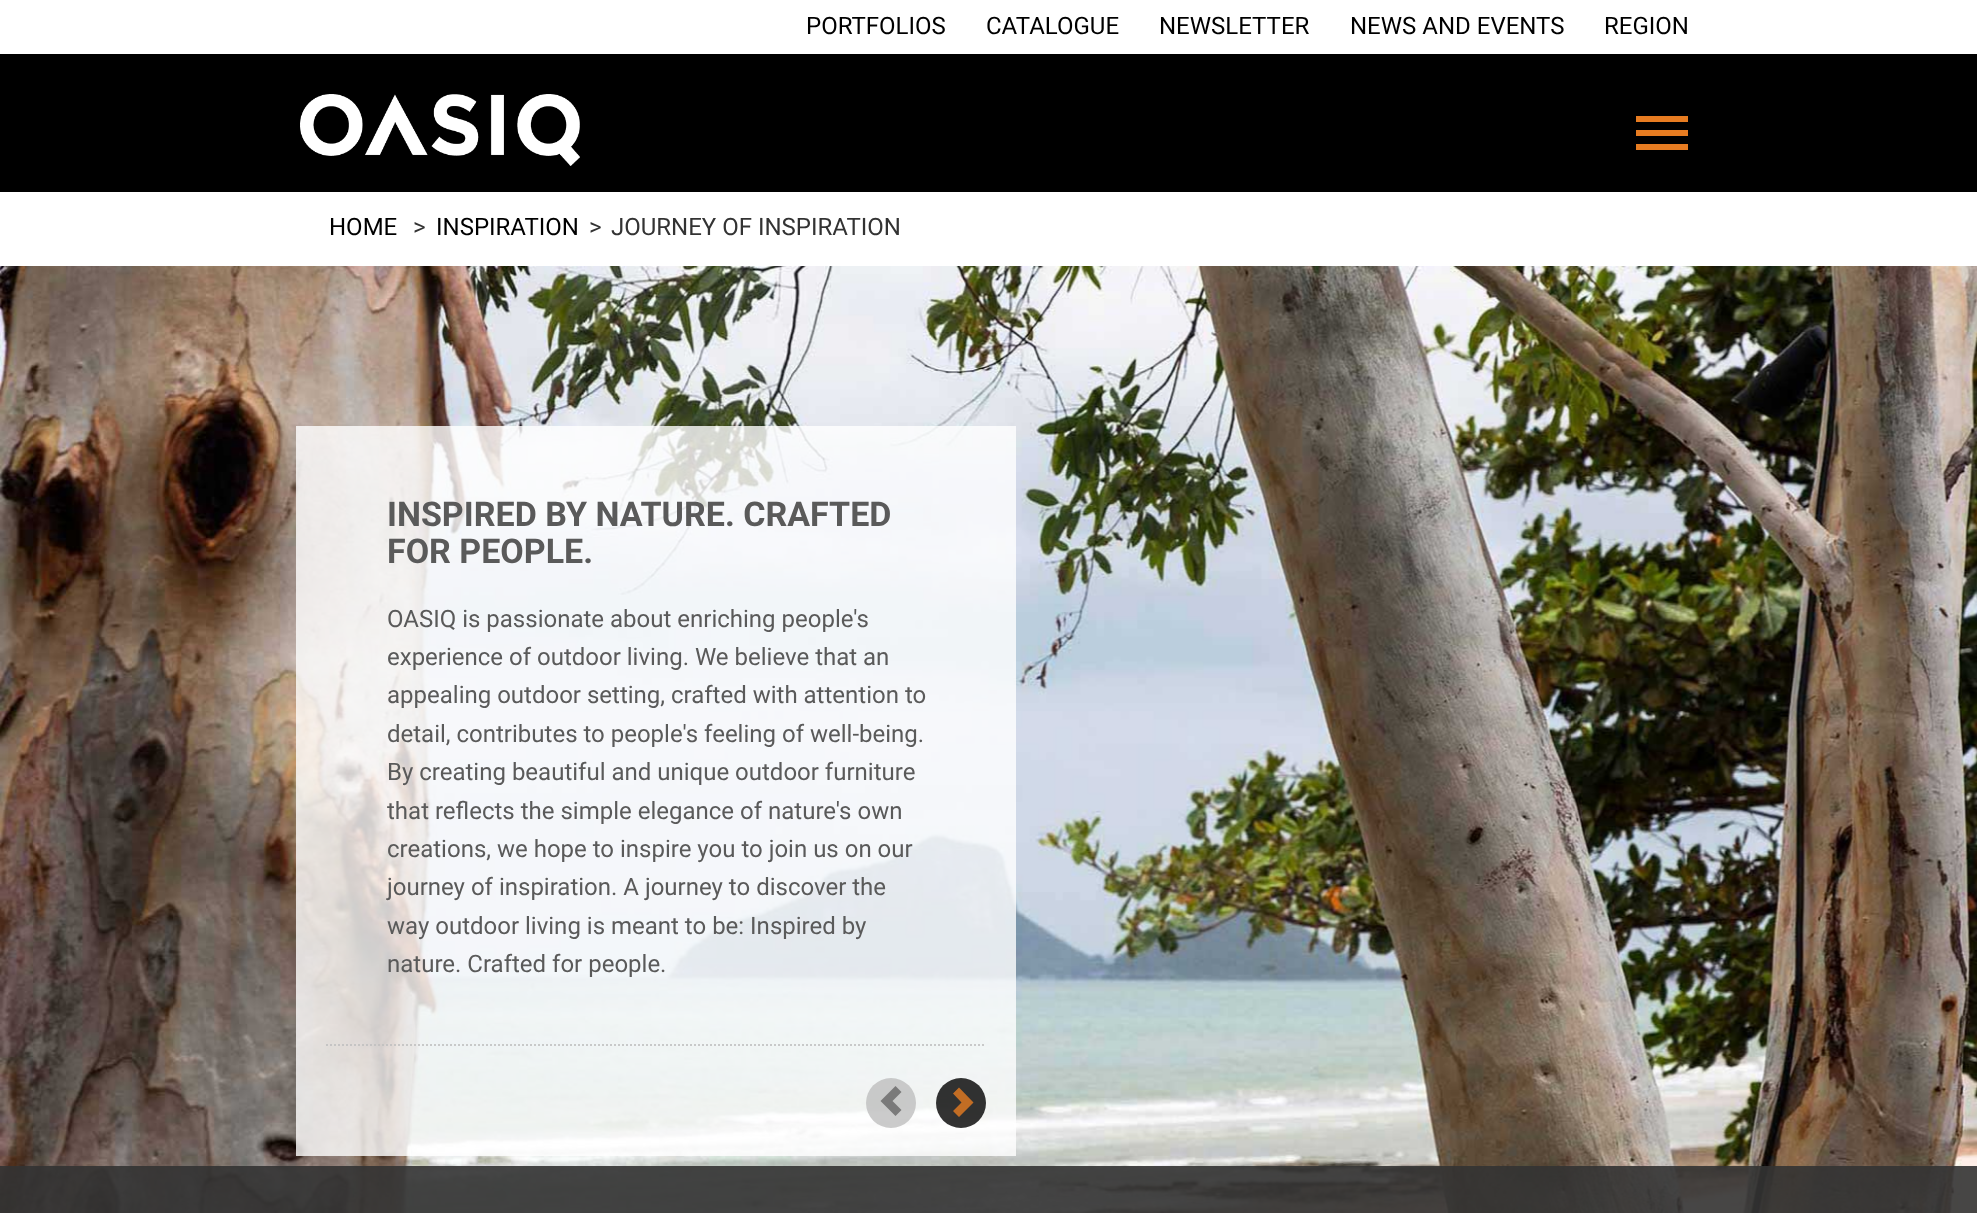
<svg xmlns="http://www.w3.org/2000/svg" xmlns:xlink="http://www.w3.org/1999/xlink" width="1977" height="1213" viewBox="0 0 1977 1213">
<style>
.cls-1{font:24px Roboto;fill:#000000}
.cls-2{font:24px Roboto;fill:#333333}
.cls-3{font:bold 34px Roboto;fill:#5a5a5a}
.cls-4{font:24px Roboto;fill:#5a5a5a}
</style>
<rect width="100%" height="100%" fill="#ffffff"/>
<rect fill="#000000" x="0" y="54" width="1977" height="138"/>
<image xlink:href="image0.png" x="300" y="94" width="280" height="72"/>
<rect fill="#e77c21" x="1636" y="116" width="52" height="6"/>
<rect fill="#e77c21" x="1636" y="130" width="52" height="6"/>
<rect fill="#e77c21" x="1636" y="144" width="52" height="6"/>
<image xlink:href="image1.png" x="0" y="266" width="1977" height="947"/>
<rect fill="#ffffff" fill-opacity="0.8" x="296" y="426" width="720" height="730"/>
<path fill="none" stroke="#bebebe" stroke-opacity="0.8" stroke-width="2" stroke-dasharray="2 2" d="M326 1045H986"/>
<circle fill="#bebebe" fill-opacity="0.8" cx="891" cy="1103" r="25"/>
<path fill="#666666" fill-opacity="0.8" d="M880.5 1101L895.5 1116L901.5 1110L892.5 1101L901.5 1092L895.5 1086Z"/>
<circle fill="#000000" fill-opacity="0.8" cx="961" cy="1103" r="25"/>
<path fill="#c26d24" d="M953 1111L961.5 1102.5L953 1093.5L959 1087.5L973.5 1102.5L959 1117Z"/>
<rect fill="#333333" fill-opacity="0.9" x="0" y="1166" width="1977" height="47"/>
<text class="cls-1" x="806" y="34">PORTFOLIOS</text>
<text class="cls-1" x="986" y="34">CATALOGUE</text>
<text class="cls-1" x="1159" y="34">NEWSLETTER</text>
<text class="cls-1" x="1350" y="34">NEWS AND EVENTS</text>
<text class="cls-1" x="1604" y="34">REGION</text>
<text class="cls-1" x="329" y="235">HOME</text>
<text class="cls-2" x="413" y="235">&gt;</text>
<text class="cls-1" x="436" y="235">INSPIRATION</text>
<text class="cls-2" x="589" y="235">&gt;</text>
<text class="cls-2" x="611" y="235">JOURNEY OF INSPIRATION</text>
<text class="cls-3"><tspan x="387" y="526">INSPIRED BY NATURE. CRAFTED</tspan><tspan x="387" y="563">FOR PEOPLE.</tspan></text>
<text class="cls-4"><tspan x="387" y="627">OASIQ is passionate about enriching people's</tspan><tspan x="387" y="665">experience of outdoor living. We believe that an</tspan><tspan x="387" y="703">appealing outdoor setting, crafted with attention to</tspan><tspan x="387" y="742">detail, contributes to people's feeling of well-being.</tspan><tspan x="387" y="780">By creating beautiful and unique outdoor furniture</tspan><tspan x="387" y="819">that reflects the simple elegance of nature's own</tspan><tspan x="387" y="857">creations, we hope to inspire you to join us on our</tspan><tspan x="387" y="895">journey of inspiration. A journey to discover the</tspan><tspan x="387" y="934">way outdoor living is meant to be: Inspired by</tspan><tspan x="387" y="972">nature. Crafted for people.</tspan></text>
</svg>
